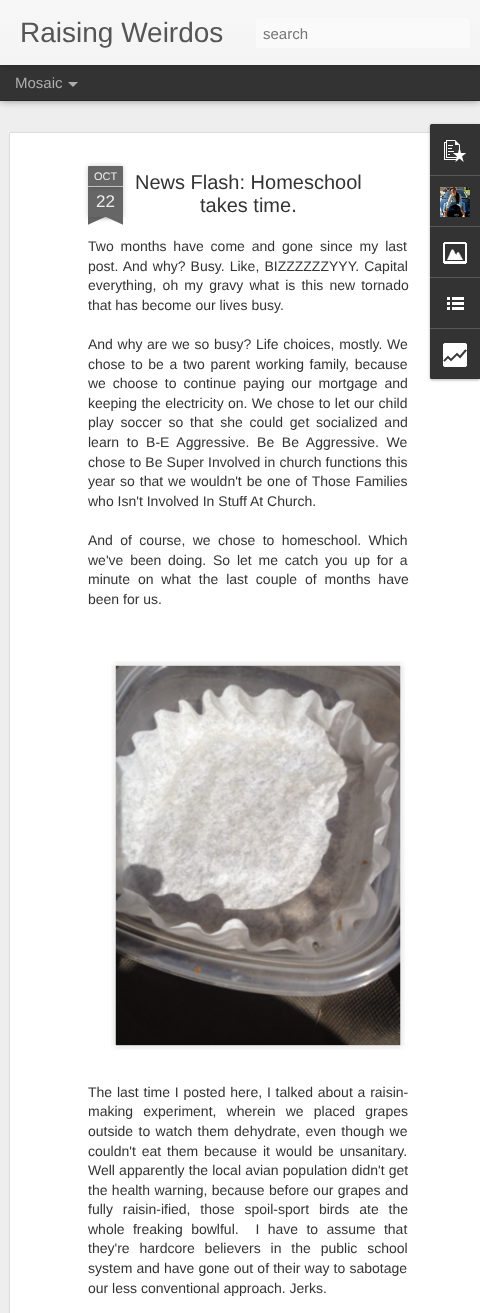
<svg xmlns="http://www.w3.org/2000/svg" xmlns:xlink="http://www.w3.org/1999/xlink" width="480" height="1313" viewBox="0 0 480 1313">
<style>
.cls-1{font:28px Liberation Sans;fill:#555555}
.cls-2{font:15px Liberation Sans;fill:#757575}
.cls-3{font:15px Liberation Sans;fill:#adadad}
.cls-4{font:11px Liberation Sans;fill:#eeeeee}
.cls-5{font:17px Liberation Sans;fill:#eeeeee}
.cls-6{font:20px Liberation Sans;fill:#333333}
.cls-7{font:14px Liberation Sans;fill:#333333}
</style>
<defs>
<linearGradient id="g1" gradientUnits="userSpaceOnUse" x1="0" y1="0" x2="0" y2="65"><stop offset="0" stop-color="#f7f7f7"/><stop offset="1" stop-color="#f4f4f4"/></linearGradient>
<clipPath id="clip1"><rect x="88" y="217" width="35" height="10"/></clipPath>
<clipPath id="clip2"><rect x="88" y="217" width="35" height="10"/></clipPath>
</defs>
<rect width="100%" height="100%" fill="#333333"/>
<rect fill="#eeeeee" x="0" y="101" width="480" height="1212"/>
<rect fill="#000000" fill-opacity="0.5" filter="blur(4px)" x="0" y="65" width="480" height="35"/>
<rect fill="#333333" x="0" y="65" width="480" height="35"/>
<rect fill="#000000" fill-opacity="0.3" filter="blur(2.5px)" x="0" y="0" width="480" height="65"/>
<rect fill="url(#g1)" x="0" y="0" width="480" height="65"/>
<rect fill="#fafafa" x="256" y="18" width="214" height="30" rx="3"/>
<path fill="#adadad" d="M68 82H78L73 87Z"/>
<rect fill="#ffffff" x="8" y="131" width="472" height="1182"/>
<image xlink:href="image0.png" x="8" y="131" width="422" height="1182"/>
<rect fill="#000000" fill-opacity="0.2" filter="blur(2.5px)" x="88" y="187" width="35" height="30"/>
<rect fill="#666666" x="88" y="187" width="35" height="30"/>
<rect fill="#000000" fill-opacity="0.2" filter="blur(2.5px)" x="88" y="166" width="35" height="21" rx="1"/>
<path fill="#666666" d="M89 166H122C122.5 166 123 166.5 123 167V187H88V167C88 166.5 88.5 166 89 166Z"/>
<rect fill="#c2c2c2" x="88" y="186" width="35" height="1"/>
<g clip-path="url(#clip1)">
<rect fill="#000000" fill-opacity="0.2" filter="blur(2.5px)" x="79" y="207" width="50" height="10"/>
</g>
<g clip-path="url(#clip2)">
<path fill="#666666" d="M79 218L125 197L129 206L83 227Z"/>
</g>
<g clip-path="url(#clip1)">
<rect fill="#000000" fill-opacity="0.2" filter="blur(2.5px)" x="82" y="207" width="50" height="10"/>
</g>
<g clip-path="url(#clip2)">
<path fill="#666666" d="M86 197L132 218L128 227L82 206Z"/>
</g>
<image xlink:href="image1.png" x="111" y="661" width="294" height="389"/>
<image xlink:href="image2.png" x="115" y="665" width="286" height="381"/>
<rect fill="#000000" fill-opacity="0.3" filter="blur(1.5px)" x="430" y="125" width="50" height="255" rx="2"/>
<path fill="#333333" d="M432 124H480V379H432C431 379 430 378 430 377V126C430 125 431 124 432 124Z"/>
<path fill="#333333" d="M432 124H480V175H430V126C430 125 431 124 432 124Z"/>
<image xlink:href="image3.png" x="444" y="140" width="22" height="22"/>
<rect fill="#585858" x="430" y="175" width="50" height="1"/>
<image xlink:href="image4.png" x="440" y="187" width="30" height="30"/>
<rect fill="#585858" x="430" y="226" width="50" height="1"/>
<image xlink:href="image5.png" x="443" y="242" width="24" height="22"/>
<rect fill="#585858" x="430" y="277" width="50" height="1"/>
<image xlink:href="image6.png" x="447" y="297" width="17" height="13"/>
<path fill="#333333" d="M430 328H480V379H432C431 379 430 378 430 377Z"/>
<rect fill="#585858" x="430" y="328" width="50" height="1"/>
<image xlink:href="image7.png" x="443" y="343" width="24" height="24"/>
<text class="cls-1" x="20" y="42">Raising Weirdos</text>
<text class="cls-2" x="263" y="39">search</text>
<text class="cls-3" x="15" y="88">Mosaic</text>
<text class="cls-4" x="94" y="180">OCT</text>
<text class="cls-5" x="96" y="207">22</text>
<text class="cls-6" x="135" y="189">News Flash: Homeschool</text>
<text class="cls-6" x="200" y="212">takes time.</text>
<text class="cls-7"><tspan x="88" y="251" word-spacing="3">Two months have come and gone since my last</tspan><tspan x="88" y="271" word-spacing="1.25">post. And why? Busy. Like, BIZZZZZZYYY. Capital</tspan><tspan x="88" y="290" word-spacing="2.25">everything, oh my gravy what is this new tornado</tspan><tspan x="88" y="310">that has become our lives busy.</tspan></text>
<text class="cls-7"><tspan x="88" y="349" word-spacing="0.75">And why are we so busy? Life choices, mostly. We</tspan><tspan x="88" y="369" word-spacing="1.75">chose to be a two parent working family, because</tspan><tspan x="88" y="388" word-spacing="3">we choose to continue paying our mortgage and</tspan><tspan x="88" y="408" word-spacing="0.5">keeping the electricity on. We chose to let our child</tspan><tspan x="88" y="427" word-spacing="2.9">play soccer so that she could get socialized and</tspan><tspan x="88" y="447" word-spacing="3.75">learn to B-E Aggressive. Be Be Aggressive. We</tspan><tspan x="88" y="467" word-spacing="0.25">chose to Be Super Involved in church functions this</tspan><tspan x="88" y="486" word-spacing="1">year so that we wouldn't be one of Those Families</tspan><tspan x="88" y="506">who Isn't Involved In Stuff At Church.</tspan></text>
<text class="cls-7"><tspan x="88" y="545" word-spacing="3.5">And of course, we chose to homeschool. Which</tspan><tspan x="88" y="565" word-spacing="2.9">we've been doing. So let me catch you up for a</tspan><tspan x="88" y="584" word-spacing="4">minute on what the last couple of months have</tspan><tspan x="88" y="604">been for us.</tspan></text>
<text class="cls-7" xml:space="preserve"><tspan x="88" y="1097" word-spacing="0.9">The last time I posted here, I talked about a raisin-</tspan><tspan x="88" y="1116" word-spacing="6.25">making experiment, wherein we placed grapes</tspan><tspan x="88" y="1136" word-spacing="1.5">outside to watch them dehydrate, even though we</tspan><tspan x="88" y="1156" word-spacing="2">couldn't eat them because it would be unsanitary.</tspan><tspan x="88" y="1175" word-spacing="0.25">Well apparently the local avian population didn't get</tspan><tspan x="88" y="1195" word-spacing="0.5">the health warning, because before our grapes and</tspan><tspan x="88" y="1214" word-spacing="6">fully raisin-ified, those spoil-sport birds ate the</tspan><tspan x="88" y="1234" word-spacing="4.5">whole freaking bowlful.  I have to assume that</tspan><tspan x="88" y="1253" word-spacing="6">they're hardcore believers in the public school</tspan><tspan x="88" y="1273" word-spacing="0.25">system and have gone out of their way to sabotage</tspan><tspan x="88" y="1293">our less conventional approach. Jerks.</tspan></text>
</svg>
